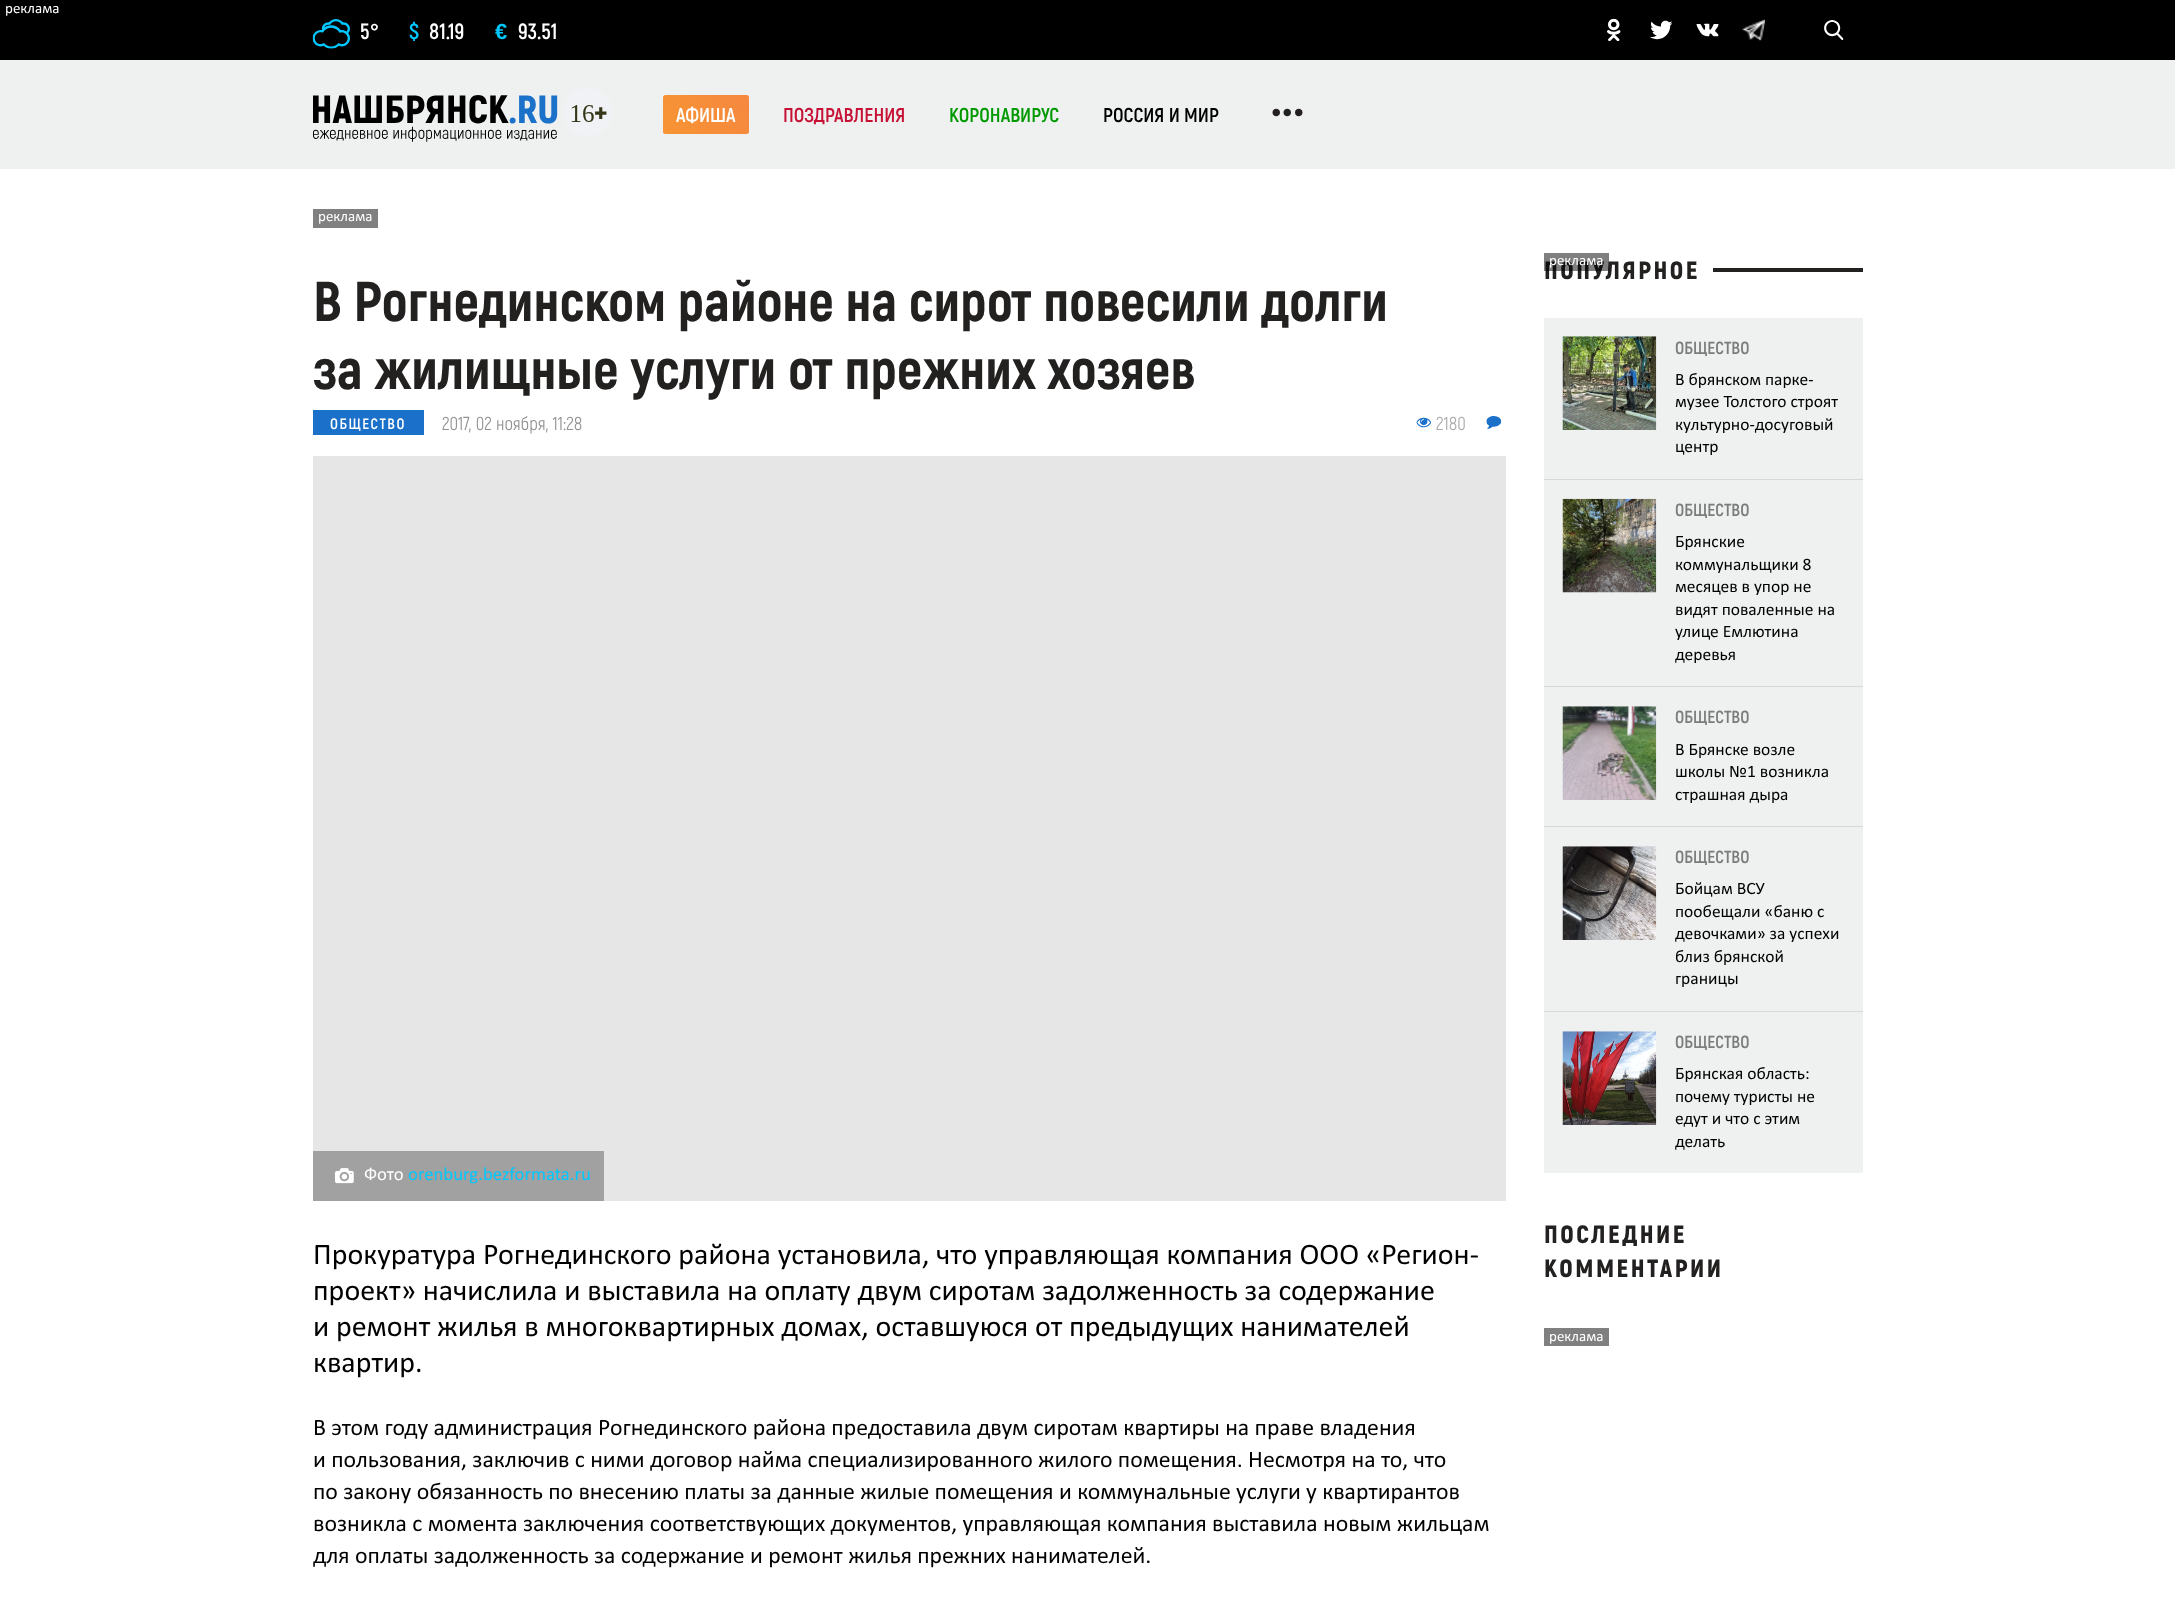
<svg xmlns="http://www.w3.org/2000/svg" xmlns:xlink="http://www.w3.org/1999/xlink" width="2175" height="1602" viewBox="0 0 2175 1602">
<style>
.cls-1{font:15px Calibri;fill:#ffffff}
.cls-2{font:bold 22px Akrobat;fill:#ffffff}
.cls-3{font:bold 22px Liberation Sans;fill:#ffffff}
.cls-4{font:bold 22px Akrobat;fill:#00c7ff}
.cls-5{font:bold 22px Liberation Sans;fill:#00c7ff}
.cls-6{font:bold 20px Akrobat;fill:#ffffff}
.cls-7{font:bold 20px Akrobat;fill:#c71236}
.cls-8{font:bold 20px Akrobat;fill:#009900}
.cls-9{font:bold 20px Akrobat;fill:#000000}
.cls-10{font:800 56.25px Akrobat;fill:#232020}
.cls-11{font:bold 15px Akrobat;letter-spacing:1.5px;fill:#ffffff}
.cls-12{font:18.75px Akrobat;fill:#939393}
.cls-13{font:18.75px Akrobat;fill:#ababab}
.cls-14{font:18.75px Calibri;fill:#ffffff}
.cls-15{font:18.75px Calibri;fill:#00c7ff}
.cls-16{font:30px Calibri;fill:#000000}
.cls-17{font:23.75px Calibri;fill:#000000}
.cls-18{font:900 25px Akrobat;letter-spacing:2.5px;fill:#232020}
.cls-19{font:bold 17.5px Akrobat;fill:#7c7c7c}
.cls-20{font:17.5px Calibri;fill:#000000}
</style>
<defs>
<linearGradient id="g1" gradientUnits="userSpaceOnUse" x1="924" y1="595" x2="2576" y2="-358"><stop offset="0" stop-color="#f79533"/><stop offset="0.14" stop-color="#f37055"/><stop offset="0.29" stop-color="#ef4e7b"/><stop offset="0.43" stop-color="#a166ab"/><stop offset="0.57" stop-color="#5073b8"/><stop offset="0.71" stop-color="#1098ad"/><stop offset="0.86" stop-color="#07b39b"/><stop offset="1" stop-color="#6fba82"/></linearGradient>
</defs>
<rect width="100%" height="100%" fill="#ffffff"/>
<rect fill="#000000" x="0" y="0" width="2175" height="60"/>
<image xlink:href="image0.png" x="312" y="19" width="38" height="30"/>
<image xlink:href="image1.png" x="1607" y="19" width="14" height="22"/>
<image xlink:href="image2.png" x="1650" y="20" width="23" height="20"/>
<image xlink:href="image3.png" x="1696" y="23" width="23" height="14"/>
<image xlink:href="image4.png" x="1742" y="19" width="23" height="22"/>
<image xlink:href="image5.png" x="1824" y="20" width="20" height="20"/>
<rect fill="#eef1f0" x="0" y="60" width="2175" height="109"/>
<image xlink:href="image6.png" x="313" y="88" width="299" height="54"/>
<rect fill="url(#g1)" x="663" y="95" width="86" height="39" rx="2.5"/>
<path fill="#232020" d="M1302.5 112.5C1302.5 117.5 1295 117.5 1295 112.5C1295 107.5 1302.5 107.5 1302.5 112.5ZM1291 112.5C1291 117.5 1283.5 117.5 1283.5 112.5C1283.5 107.5 1291 107.5 1291 112.5ZM1280 112.5C1280 117.5 1272.5 117.5 1272.5 112.5C1272.5 107.5 1280 107.5 1280 112.5Z"/>
<rect fill="#808080" x="313" y="209" width="65" height="19"/>
<rect fill="#1b71c9" x="313" y="410" width="111" height="25"/>
<image xlink:href="image7.png" x="1416" y="417" width="15" height="11"/>
<image xlink:href="image8.png" x="1486" y="416" width="15" height="13"/>
<rect fill="#e6e6e6" x="313" y="456" width="1193" height="745"/>
<rect fill="#a1a1a1" x="313" y="1151" width="291" height="50"/>
<image xlink:href="image9.png" x="335" y="1168" width="19" height="16"/>
<rect fill="#232020" x="1713" y="268" width="150" height="4"/>
<rect fill="#eef1f0" x="1544" y="318" width="319" height="161"/>
<rect fill="#d7d9d8" x="1544" y="479" width="319" height="1"/>
<image xlink:href="image10.png" x="1562" y="336" width="95" height="94"/>
<rect fill="#eef1f0" x="1544" y="480" width="319" height="693"/>
<rect fill="#d7d9d8" x="1544" y="686" width="319" height="1"/>
<image xlink:href="image11.png" x="1562" y="498" width="95" height="95"/>
<rect fill="#d7d9d8" x="1544" y="826" width="319" height="1"/>
<image xlink:href="image12.png" x="1562" y="706" width="95" height="94"/>
<rect fill="#d7d9d8" x="1544" y="1011" width="319" height="1"/>
<image xlink:href="image13.png" x="1562" y="846" width="95" height="94"/>
<image xlink:href="image14.png" x="1562" y="1031" width="95" height="94"/>
<rect fill="#808080" x="1544" y="1328" width="65" height="18"/>
<text class="cls-1" x="5" y="13">реклама</text>
<text class="cls-2" x="360" y="39">5</text>
<text class="cls-3" x="370" y="39">°</text>
<text class="cls-4" x="409" y="39">$</text>
<text class="cls-2" x="429" y="39">81.19</text>
<text class="cls-5" x="495" y="39">€</text>
<text class="cls-2" x="518" y="39">93.51</text>
<text class="cls-6" x="676" y="122">АФИША</text>
<text class="cls-7" x="783" y="122">ПОЗДРАВЛЕНИЯ</text>
<text class="cls-8" x="949" y="122">КОРОНАВИРУС</text>
<text class="cls-9" x="1103" y="122">РОССИЯ И МИР</text>
<text class="cls-1" x="318" y="221">реклама</text>
<text class="cls-10"><tspan x="313" y="321">В Рогнединском районе на сирот повесили долги</tspan><tspan x="313" y="389">за жилищные услуги от прежних хозяев</tspan></text>
<text class="cls-11" x="330" y="429">ОБЩЕСТВО</text>
<text class="cls-12" x="442" y="430">2017, 02 ноября, 11:28</text>
<text class="cls-13" x="1436" y="430">2180</text>
<text class="cls-14" x="364" y="1180">Фото</text>
<text class="cls-15" x="408" y="1180">orenburg.bezformata.ru</text>
<text class="cls-16"><tspan x="313" y="1264">Прокуратура Рогнединского района установила, что управляющая компания ООО «Регион-</tspan><tspan x="313" y="1300">проект» начислила и выставила на оплату двум сиротам задолженность за содержание</tspan><tspan x="313" y="1336">и ремонт жилья в многоквартирных домах, оставшуюся от предыдущих нанимателей</tspan><tspan x="313" y="1372">квартир.</tspan></text>
<text class="cls-17"><tspan x="313" y="1435">В этом году администрация Рогнединского района предоставила двум сиротам квартиры на праве владения</tspan><tspan x="313" y="1467">и пользования, заключив с ними договор найма специализированного жилого помещения. Несмотря на то, что</tspan><tspan x="313" y="1499">по закону обязанность по внесению платы за данные жилые помещения и коммунальные услуги у квартирантов</tspan><tspan x="313" y="1531">возникла с момента заключения соответствующих документов, управляющая компания выставила новым жильцам</tspan><tspan x="313" y="1563">для оплаты задолженность за содержание и ремонт жилья прежних нанимателей.</tspan></text>
<text class="cls-18" x="1544" y="279">ПОПУЛЯРНОЕ</text>
<rect fill="#000000" fill-opacity="0.5" x="1544" y="253" width="65" height="18"/>
<text class="cls-1" x="1549" y="265">реклама</text>
<text class="cls-19" x="1675" y="354">ОБЩЕСТВО</text>
<text class="cls-20"><tspan x="1675" y="385">В брянском парке-</tspan><tspan x="1675" y="407">музее Толстого строят</tspan><tspan x="1675" y="430">культурно-досуговый</tspan><tspan x="1675" y="452">центр</tspan></text>
<text class="cls-19" x="1675" y="516">ОБЩЕСТВО</text>
<text class="cls-20"><tspan x="1675" y="547">Брянские</tspan><tspan x="1675" y="570">коммунальщики 8</tspan><tspan x="1675" y="592">месяцев в упор не</tspan><tspan x="1675" y="615">видят поваленные на</tspan><tspan x="1675" y="637">улице Емлютина</tspan><tspan x="1675" y="660">деревья</tspan></text>
<text class="cls-19" x="1675" y="723">ОБЩЕСТВО</text>
<text class="cls-20"><tspan x="1675" y="755">В Брянске возле</tspan><tspan x="1675" y="777">школы №1 возникла</tspan><tspan x="1675" y="800">страшная дыра</tspan></text>
<text class="cls-19" x="1675" y="863">ОБЩЕСТВО</text>
<text class="cls-20"><tspan x="1675" y="894">Бойцам ВСУ</tspan><tspan x="1675" y="917">пообещали «баню с</tspan><tspan x="1675" y="939">девочками» за успехи</tspan><tspan x="1675" y="962">близ брянской</tspan><tspan x="1675" y="984">границы</tspan></text>
<text class="cls-19" x="1675" y="1048">ОБЩЕСТВО</text>
<text class="cls-20"><tspan x="1675" y="1079">Брянская область:</tspan><tspan x="1675" y="1102">почему туристы не</tspan><tspan x="1675" y="1124">едут и что с этим</tspan><tspan x="1675" y="1147">делать</tspan></text>
<text class="cls-18"><tspan x="1544" y="1243">ПОСЛЕДНИЕ</tspan><tspan x="1544" y="1277">КОММЕНТАРИИ</tspan></text>
<text class="cls-1" x="1549" y="1341">реклама</text>
</svg>
